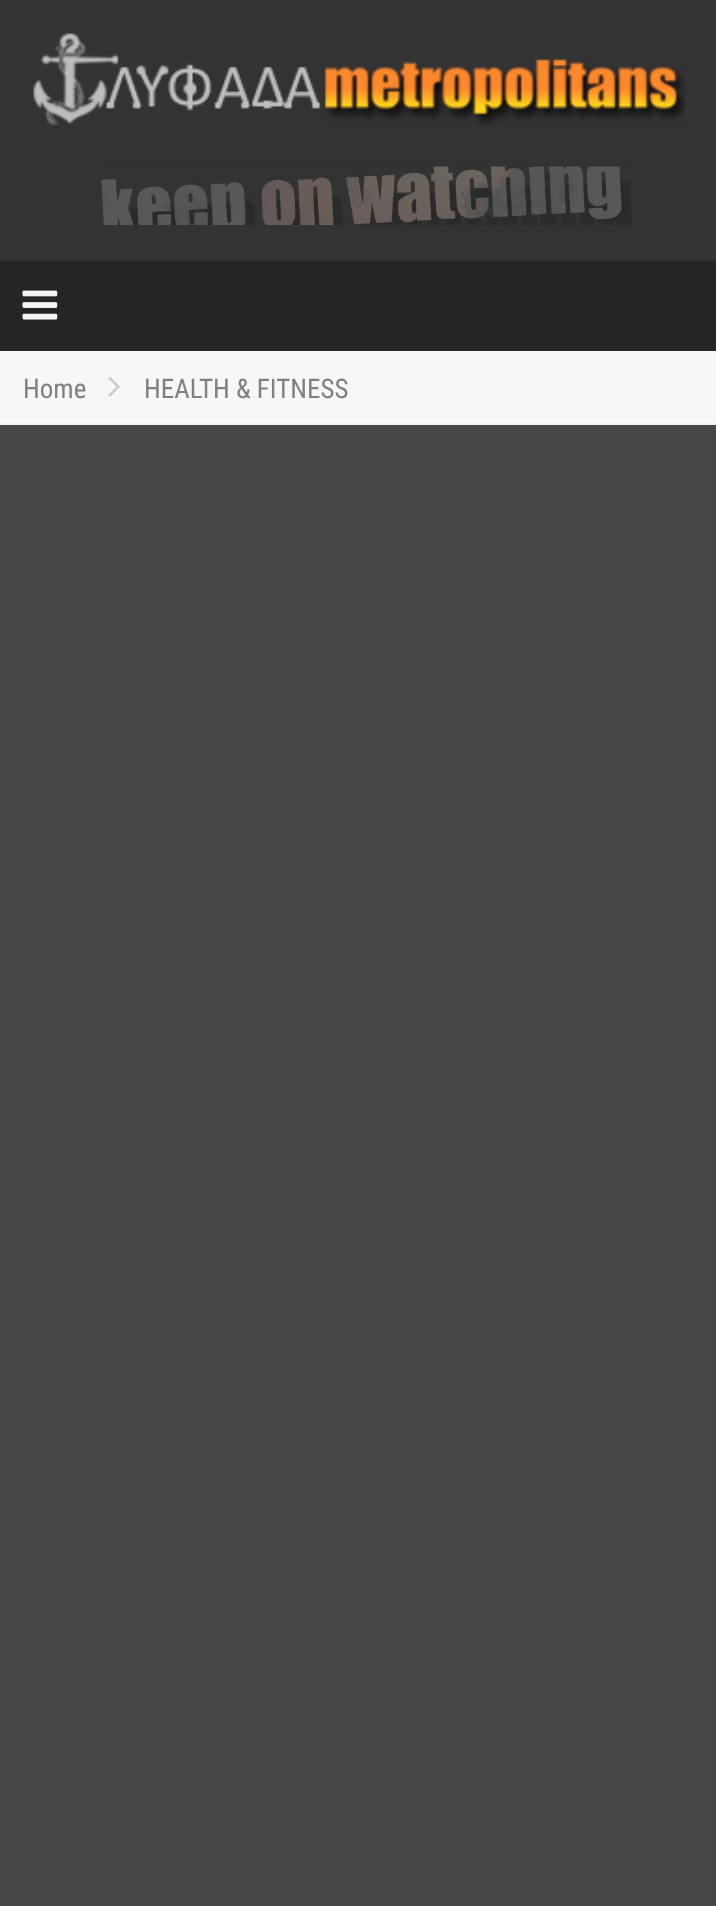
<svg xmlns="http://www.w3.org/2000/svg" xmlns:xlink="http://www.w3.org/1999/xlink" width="716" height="1906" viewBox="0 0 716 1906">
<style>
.cls-1{font:27px Roboto Condensed;fill:#808080}
</style>
<rect width="100%" height="100%" fill="#333333"/>
<image xlink:href="image0.png" x="33" y="33" width="653" height="93"/>
<image xlink:href="image1.png" x="101" y="166" width="531" height="59"/>
<rect fill="#252525" x="0" y="261" width="716" height="90"/>
<image xlink:href="image2.png" x="22" y="290" width="36" height="30"/>
<rect fill="#f7f7f7" x="0" y="351" width="716" height="72"/>
<rect fill="#f3f3f3" x="0" y="423" width="716" height="2"/>
<image xlink:href="image3.png" x="108" y="376" width="12" height="21"/>
<rect fill="#474747" x="0" y="425" width="716" height="1481"/>
<text class="cls-1" x="23" y="398">Home</text>
<text class="cls-1" x="144" y="398">HEALTH &amp; FITNESS</text>
</svg>
